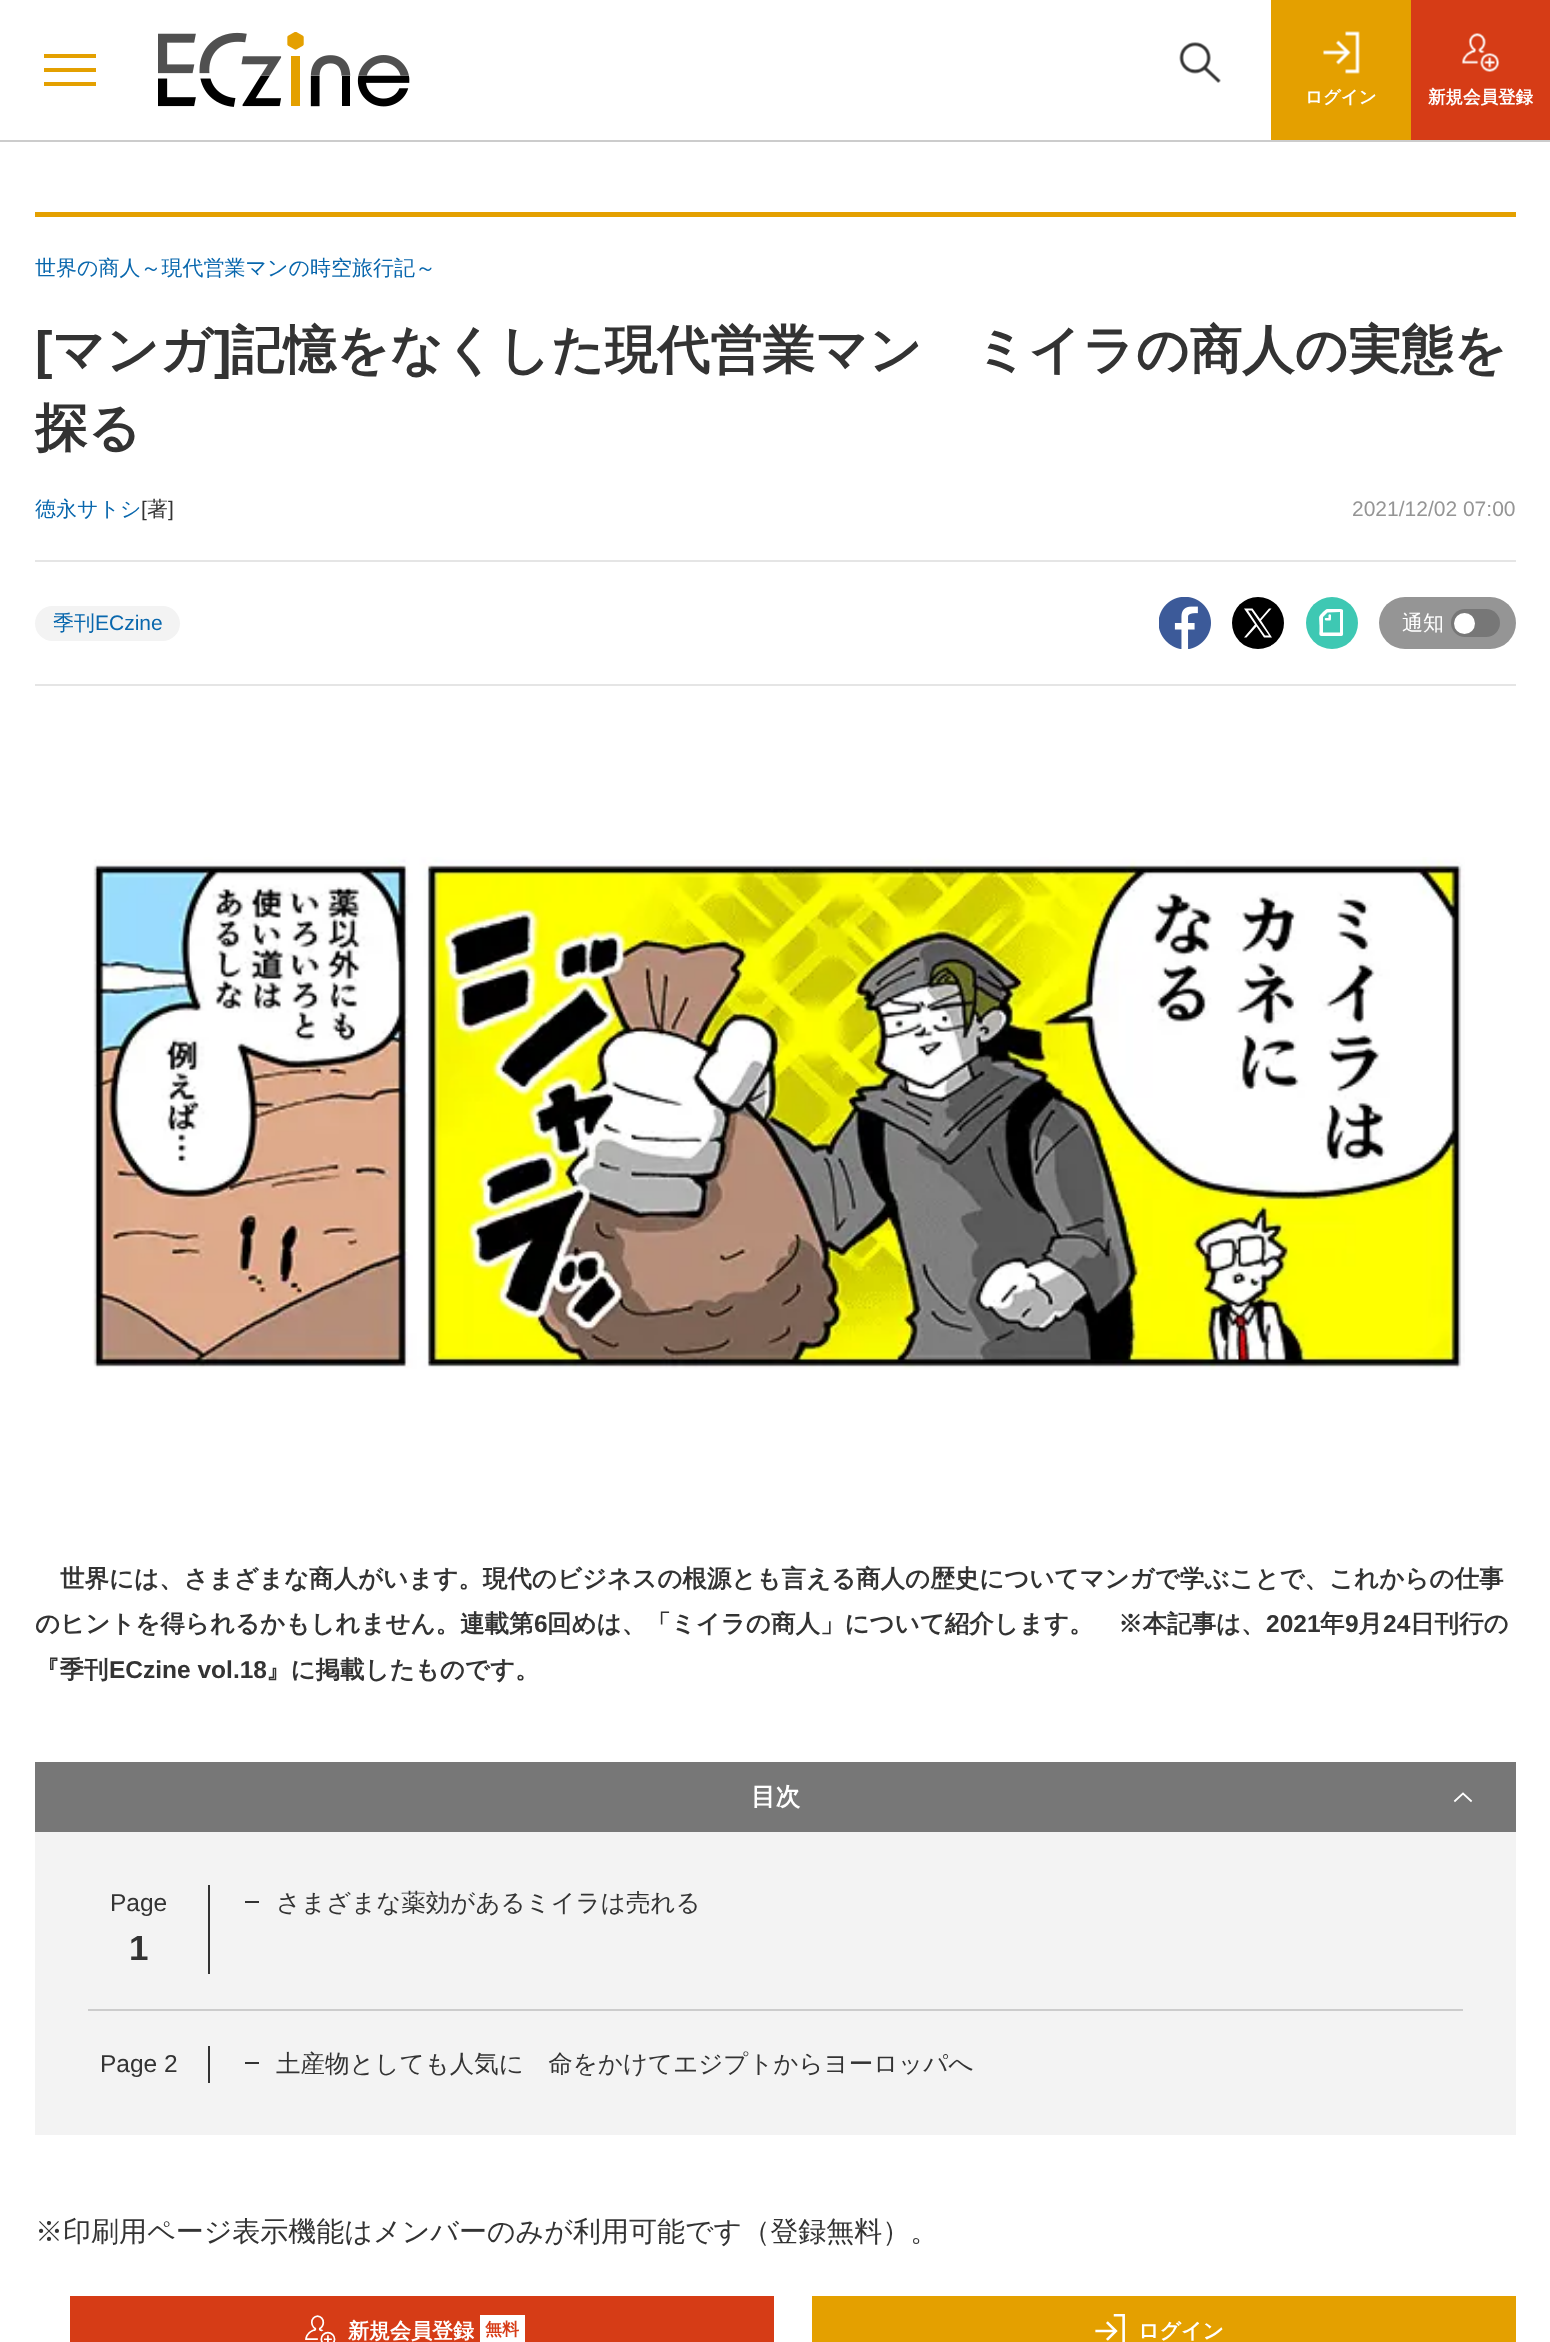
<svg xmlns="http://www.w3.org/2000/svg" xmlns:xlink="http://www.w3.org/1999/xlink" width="1550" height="2342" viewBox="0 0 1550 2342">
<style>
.cls-1{font:bold 17.5px WenQuanYi Zen Hei;fill:#ffffff}
.cls-2{font:500 21px WenQuanYi Zen Hei;fill:#0967ad}
.cls-3{font:bold 52.5px Liberation Sans;fill:#333333}
.cls-4{font:bold 52.5px WenQuanYi Zen Hei;fill:#333333}
.cls-5{font:21px Liberation Sans;fill:#333333}
.cls-6{font:500 21px WenQuanYi Zen Hei;fill:#333333}
.cls-7{font:21px Liberation Sans;fill:#959595}
.cls-8{font:21px Liberation Sans;fill:#0967ad}
.cls-9{font:500 21px WenQuanYi Zen Hei;fill:#ffffff}
.cls-10{font:bold 24.5px WenQuanYi Zen Hei;fill:#333333}
.cls-11{font:bold 24.5px Liberation Sans;fill:#333333}
.cls-12{font:bold 24.5px WenQuanYi Zen Hei;fill:#ffffff}
.cls-13{font:24.5px Liberation Sans;fill:#333333}
.cls-14{font:bold 35px Liberation Sans;fill:#333333}
.cls-15{font:500 24.5px WenQuanYi Zen Hei;fill:#333333}
.cls-16{font:500 28px WenQuanYi Zen Hei;fill:#333333}
.cls-17{font:bold 21px WenQuanYi Zen Hei;fill:#ffffff}
.cls-18{font:bold 17px WenQuanYi Zen Hei;fill:#d63c16}
</style>
<rect width="100%" height="100%" fill="#ffffff"/>
<rect fill="#cccccc" x="0" y="140" width="1550" height="2"/>
<rect fill="#e4a000" x="44" y="68" width="52" height="4"/>
<rect fill="#e4a000" x="44" y="54" width="52" height="4"/>
<rect fill="#e4a000" x="44" y="82" width="52" height="4"/>
<image xlink:href="image0.png" x="158" y="32" width="252" height="75"/>
<image xlink:href="image1.png" x="1179" y="42" width="42" height="41"/>
<rect fill="#e4a000" x="1271" y="0" width="140" height="140"/>
<image xlink:href="image2.png" x="1323" y="31" width="37" height="43"/>
<rect fill="#d63c16" x="1411" y="0" width="139" height="140"/>
<image xlink:href="image3.png" x="1461" y="33" width="39" height="39"/>
<rect fill="#e4a000" x="35" y="212" width="1481" height="5"/>
<rect fill="#e5e5e5" x="35" y="684" width="1481" height="2"/>
<rect fill="#e5e5e5" x="35" y="560" width="1481" height="2"/>
<rect fill="#f3f3f3" x="35" y="606" width="145" height="35" rx="17.5"/>
<image xlink:href="image4.png" x="1159" y="597" width="52" height="52"/>
<circle fill="#000000" cx="1258" cy="623" r="26"/>
<path fill="#ffffff" d="M1261 620.5L1271.5 608.5H1269L1260 619L1252.5 608.5H1244L1255 624.5L1244 637.5H1246.5L1256.5 626.5L1264 637.5H1272ZM1257.5 625L1248 610.5H1251.5L1269 635.5H1265Z"/>
<circle fill="#3ec8b3" cx="1332" cy="623" r="26"/>
<path fill="#ffffff" fill-rule="evenodd" d="M1321.5 636H1338C1344 636 1343 636 1343 630V614.5C1343 609.5 1344 609 1339 609H1327.5C1325.5 609 1325 610.5 1323.5 611.5C1317.5 617.5 1319.5 615.5 1319.5 625.5V631C1319.5 632.5 1318.5 636 1321.5 636ZM1327.5 612.5L1340 612V632.5H1323V617ZM1326.5 620.5C1331 620.5 1331 621.5 1331 617V615C1330.5 614 1329 614 1328.5 615V618H1325.5C1324 618.5 1325 621 1326.5 620.5Z"/>
<rect fill="#959595" x="1379" y="597" width="137" height="52" rx="26"/>
<rect fill="#777777" x="1451" y="609" width="49" height="28" rx="14"/>
<circle fill="#ffffff" cx="1464.5" cy="623.5" r="10.5"/>
<image xlink:href="image5.png" x="92" y="857" width="1373" height="513"/>
<rect fill="#777777" x="35" y="1762" width="1481" height="70"/>
<image xlink:href="image6.png" x="1453" y="1792" width="20" height="11"/>
<rect fill="#f3f3f3" x="35" y="1832" width="1481" height="303"/>
<rect fill="#333333" x="208" y="1885" width="2" height="89"/>
<rect fill="#333333" x="245" y="1901" width="14" height="2"/>
<rect fill="#cccccc" x="88" y="2009" width="1375" height="2"/>
<rect fill="#333333" x="208" y="2046" width="2" height="37"/>
<rect fill="#333333" x="245" y="2062" width="14" height="2"/>
<rect fill="#d63c16" x="70" y="2296" width="704" height="46"/>
<image xlink:href="image7.png" x="305" y="2315" width="31" height="27"/>
<rect fill="#ffffff" x="480" y="2315" width="45" height="27"/>
<rect fill="#e4a000" x="812" y="2296" width="704" height="46"/>
<image xlink:href="image8.png" x="1095" y="2314" width="30" height="28"/>
<text class="cls-1" x="1305" y="103">ログイン</text>
<text class="cls-1" x="1428" y="103">新規会員登録</text>
<text class="cls-2" x="35" y="275">世界の商人～現代営業マンの時空旅行記～</text>
<text class="cls-3" x="35" y="368">[</text>
<text class="cls-4" x="52" y="368">マンガ</text>
<text class="cls-3" x="214" y="368">]</text>
<text class="cls-4" x="231" y="368">記憶をなくした現代営業マン　ミイラの商人の実態を</text>
<text class="cls-4" x="35" y="446">探る</text>
<text class="cls-2" x="35" y="516">徳永サトシ</text>
<text class="cls-5" x="141" y="516">[</text>
<text class="cls-6" x="147" y="516">著</text>
<text class="cls-5" x="168" y="516">]</text>
<text class="cls-7" x="1352" y="516">2021/12/02 07:00</text>
<text class="cls-2" x="53" y="630">季刊</text>
<text class="cls-8" x="95" y="630">ECzine</text>
<text class="cls-9" x="1402" y="630">通知</text>
<text class="cls-10" x="60" y="1587">世界には、さまざまな商人がいます。現代のビジネスの根源とも言える商人の歴史についてマンガで学ぶことで、これからの仕事</text>
<text class="cls-10" x="35" y="1632">のヒントを得られるかもしれません。連載第</text>
<text class="cls-11" x="534" y="1632">6</text>
<text class="cls-10" x="547" y="1632">回めは、「ミイラの商人」について紹介します。　※本記事は、</text>
<text class="cls-11" x="1266" y="1632">2021</text>
<text class="cls-10" x="1320" y="1632">年</text>
<text class="cls-11" x="1345" y="1632">9</text>
<text class="cls-10" x="1358" y="1632">月</text>
<text class="cls-11" x="1383" y="1632">24</text>
<text class="cls-10" x="1410" y="1632">日刊行の</text>
<text class="cls-10" x="35" y="1678">『季刊</text>
<text class="cls-11" x="109" y="1678">ECzine vol.18</text>
<text class="cls-10" x="266" y="1678">』に掲載したものです。</text>
<text class="cls-12" x="751" y="1805">目次</text>
<text class="cls-13" x="110" y="1911">Page</text>
<text class="cls-14" x="129" y="1960">1</text>
<text class="cls-15" x="276" y="1911">さまざまな薬効があるミイラは売れる</text>
<text class="cls-13" x="100" y="2072">Page 2</text>
<text class="cls-15" x="276" y="2072">土産物としても人気に　命をかけてエジプトからヨーロッパへ</text>
<text class="cls-16" x="35" y="2241">※印刷用ページ表示機能はメンバーのみが利用可能です（登録無料）。</text>
<text class="cls-17" x="348" y="2338">新規会員登録</text>
<text class="cls-18" x="485" y="2335">無料</text>
<text class="cls-17" x="1138" y="2338">ログイン</text>
</svg>
